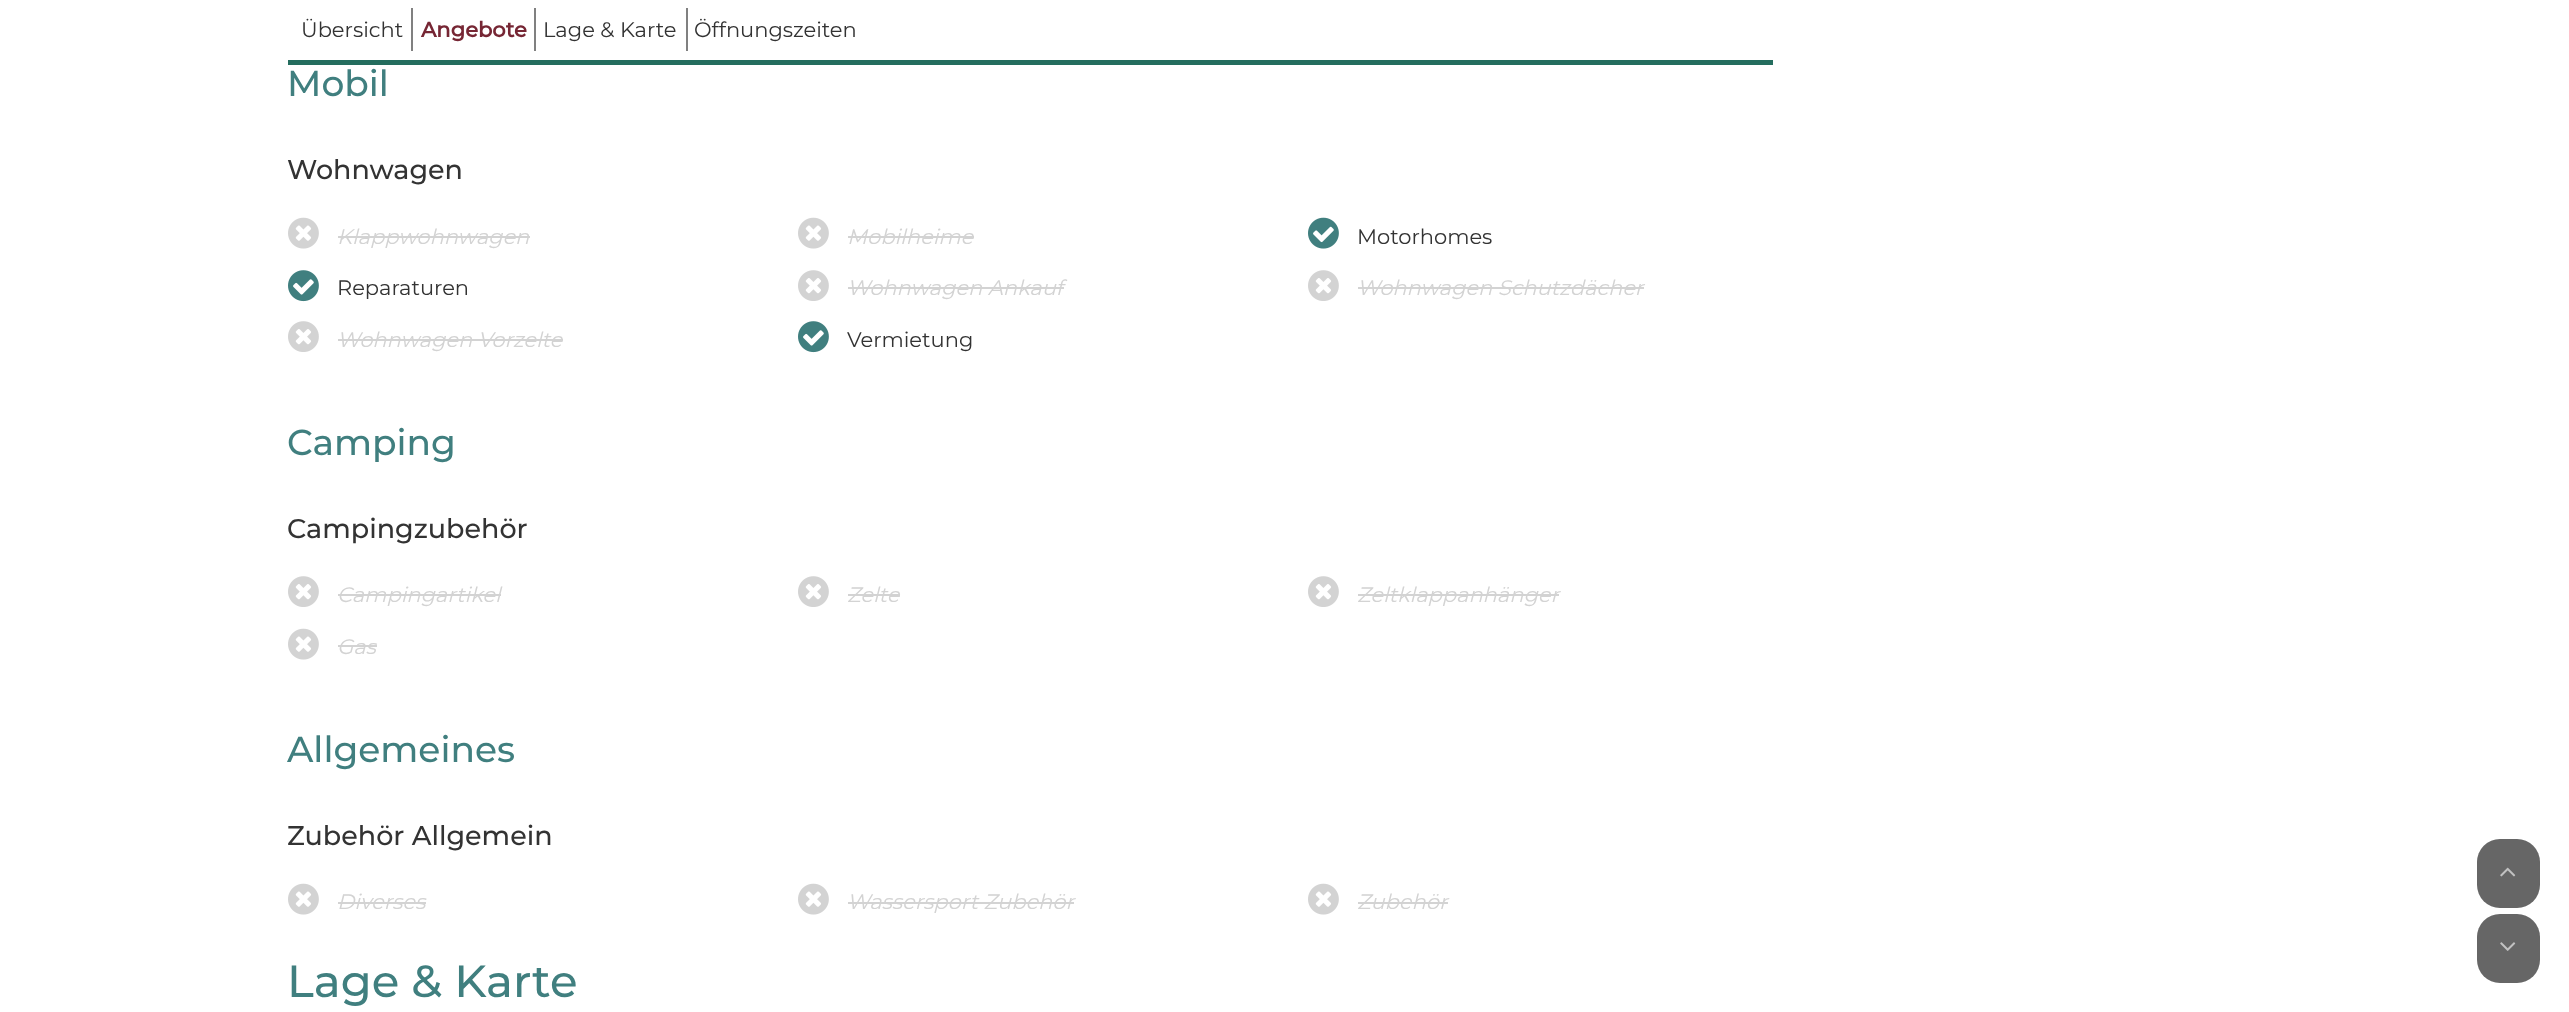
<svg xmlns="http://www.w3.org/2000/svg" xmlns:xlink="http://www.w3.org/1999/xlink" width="2569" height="1012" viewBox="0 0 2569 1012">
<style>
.cls-1{font:21px Montserrat;fill:#333333}
.cls-2{font:bold 21px Montserrat;fill:#762634}
.cls-3{font:500 36px Montserrat;fill:#407f7f}
.cls-4{font:500 27px Montserrat;fill:#333333}
.cls-5{font:italic 21px Montserrat;fill:#d3d3d3}
.cls-6{font:500 45px Montserrat;fill:#407f7f}
</style>
<rect width="100%" height="100%" fill="#ffffff"/>
<rect fill="#246d5e" x="288" y="60" width="1485" height="5"/>
<rect fill="#808080" x="411" y="8" width="2" height="43"/>
<rect fill="#808080" x="534" y="8" width="2" height="43"/>
<rect fill="#808080" x="686" y="8" width="2" height="43"/>
<image xlink:href="image0.png" x="288" y="217" width="31" height="32"/>
<rect fill="#d3d3d3" x="338" y="236" width="192" height="2"/>
<image xlink:href="image0.png" x="798" y="217" width="31" height="32"/>
<rect fill="#d3d3d3" x="848" y="236" width="126" height="2"/>
<image xlink:href="image1.png" x="1308" y="217" width="31" height="32"/>
<image xlink:href="image2.png" x="288" y="270" width="31" height="32"/>
<image xlink:href="image3.png" x="798" y="270" width="31" height="31"/>
<rect fill="#d3d3d3" x="848" y="287" width="216" height="2"/>
<image xlink:href="image3.png" x="1308" y="270" width="31" height="31"/>
<rect fill="#d3d3d3" x="1358" y="287" width="286" height="2"/>
<image xlink:href="image3.png" x="288" y="321" width="31" height="31"/>
<rect fill="#d3d3d3" x="338" y="339" width="225" height="2"/>
<image xlink:href="image2.png" x="798" y="321" width="31" height="32"/>
<image xlink:href="image3.png" x="288" y="576" width="31" height="31"/>
<rect fill="#d3d3d3" x="338" y="594" width="163" height="2"/>
<image xlink:href="image3.png" x="798" y="576" width="31" height="31"/>
<rect fill="#d3d3d3" x="848" y="594" width="52" height="2"/>
<image xlink:href="image3.png" x="1308" y="576" width="31" height="31"/>
<rect fill="#d3d3d3" x="1358" y="594" width="201" height="2"/>
<image xlink:href="image0.png" x="288" y="628" width="31" height="32"/>
<rect fill="#d3d3d3" x="338" y="645" width="39" height="2"/>
<image xlink:href="image0.png" x="288" y="883" width="31" height="32"/>
<rect fill="#d3d3d3" x="338" y="902" width="88" height="2"/>
<image xlink:href="image0.png" x="798" y="883" width="31" height="32"/>
<rect fill="#d3d3d3" x="848" y="902" width="226" height="2"/>
<image xlink:href="image0.png" x="1308" y="883" width="31" height="32"/>
<rect fill="#d3d3d3" x="1358" y="902" width="90" height="2"/>
<rect fill="#666666" x="2477" y="839" width="63" height="69" rx="23"/>
<image xlink:href="image4.png" x="2500" y="867" width="16" height="10"/>
<rect fill="#666666" x="2477" y="914" width="63" height="69" rx="23"/>
<image xlink:href="image5.png" x="2500" y="942" width="16" height="9"/>
<text class="cls-1" x="301" y="37">Übersicht</text>
<text class="cls-2" x="421" y="37">Angebote</text>
<text class="cls-1" x="543" y="37">Lage &amp; Karte</text>
<text class="cls-1" x="694" y="37">Öffnungszeiten</text>
<text class="cls-3" x="287" y="96">Mobil</text>
<text class="cls-4" x="287" y="179">Wohnwagen</text>
<text class="cls-5" x="337" y="244">Klappwohnwagen</text>
<text class="cls-5" x="847" y="244">Mobilheime</text>
<text class="cls-1" x="1357" y="244">Motorhomes</text>
<text class="cls-1" x="337" y="295">Reparaturen</text>
<text class="cls-5" x="847" y="295">Wohnwagen Ankauf</text>
<text class="cls-5" x="1357" y="295">Wohnwagen Schutzdächer</text>
<text class="cls-5" x="337" y="347">Wohnwagen Vorzelte</text>
<text class="cls-1" x="847" y="347">Vermietung</text>
<text class="cls-3" x="287" y="455">Camping</text>
<text class="cls-4" x="287" y="538">Campingzubehör</text>
<text class="cls-5" x="337" y="602">Campingartikel</text>
<text class="cls-5" x="847" y="602">Zelte</text>
<text class="cls-5" x="1357" y="602">Zeltklappanhänger</text>
<text class="cls-5" x="337" y="654">Gas</text>
<text class="cls-3" x="287" y="762">Allgemeines</text>
<text class="cls-4" x="287" y="845">Zubehör Allgemein</text>
<text class="cls-5" x="337" y="909">Diverses</text>
<text class="cls-5" x="847" y="909">Wassersport Zubehör</text>
<text class="cls-5" x="1357" y="909">Zubehör</text>
<text class="cls-6" x="287" y="997">Lage &amp; Karte</text>
</svg>
